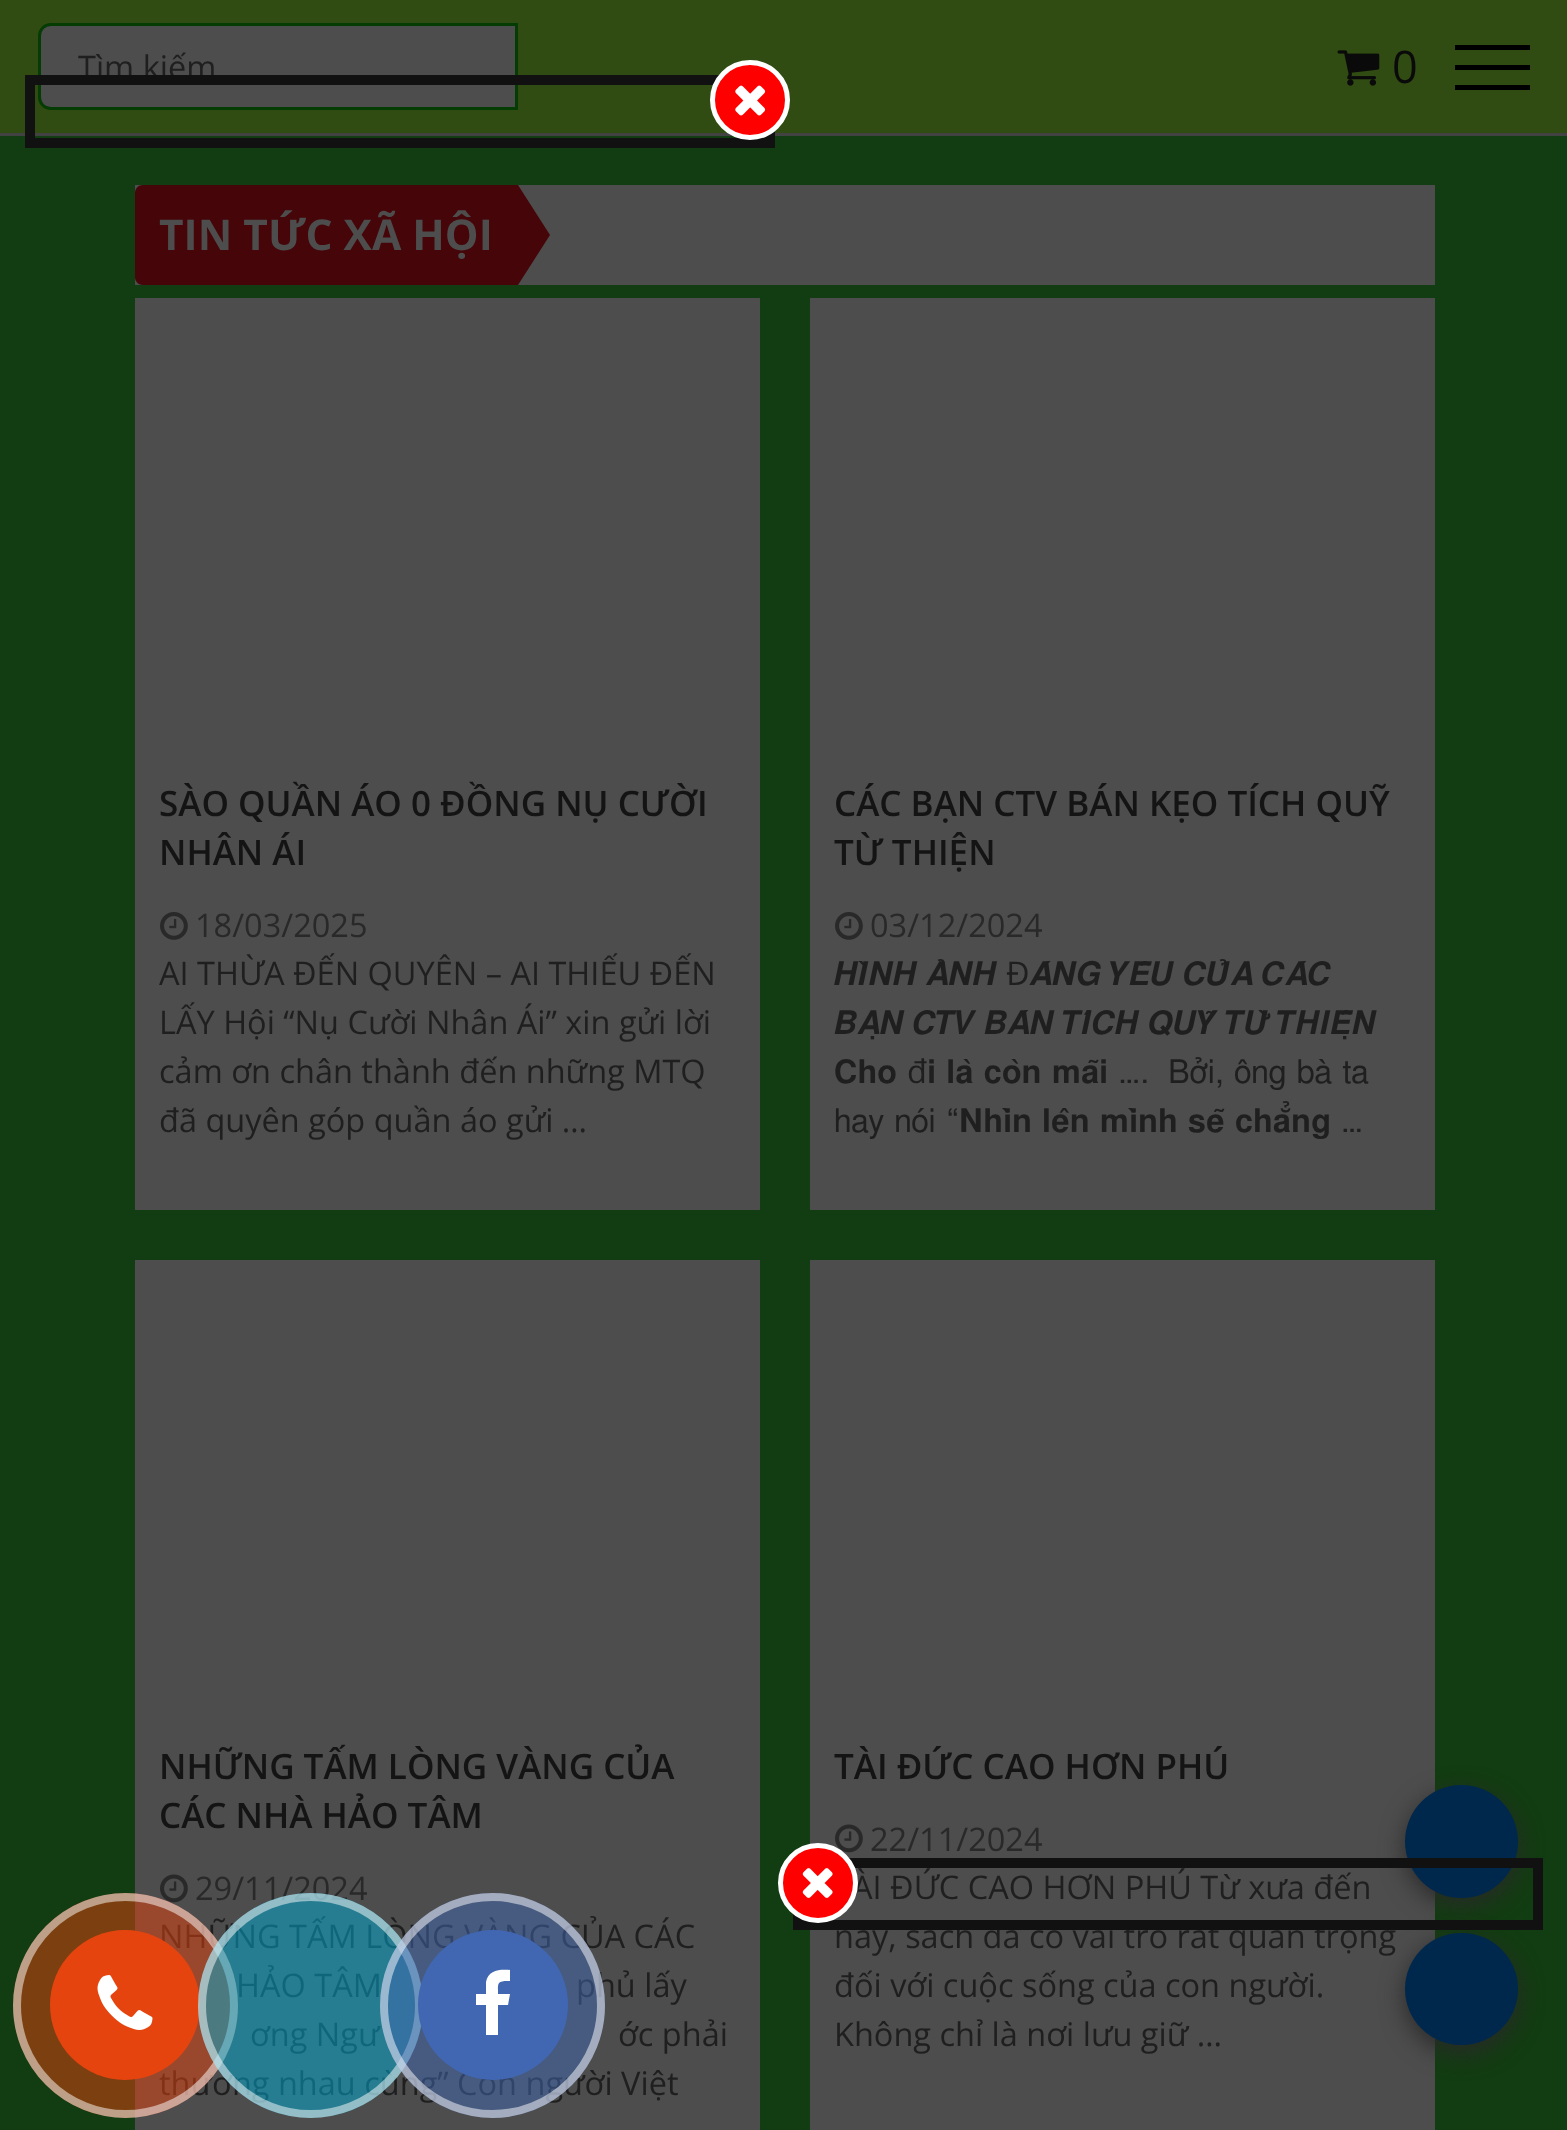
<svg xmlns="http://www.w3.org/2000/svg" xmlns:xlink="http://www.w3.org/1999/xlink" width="1567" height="2130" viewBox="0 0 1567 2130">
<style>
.cls-1{font:32.5px Open Sans;fill:#1f1f1f}
.cls-2{font:45px Open Sans;fill:#0a0a0a}
.cls-3{font:bold 42.5px Open Sans;fill:#4d4d4d}
.cls-4{font:600 35px Open Sans;fill:#141414}
.cls-5{font:32.5px Open Sans;fill:#292929}
.cls-6{font:32.5px FreeSans;fill:#1f1f1f}
</style>
<rect width="100%" height="100%" fill="#123c11"/>
<rect fill="#304c12" x="0" y="0" width="1567" height="133"/>
<rect fill="#424242" x="0" y="133" width="1567" height="3"/>
<path fill="#4d4d4d" stroke="#053c03" stroke-width="3" d="M51 24.5H516.5V108.5H51C44.5 108.5 39.5 103.5 39.5 97V36C39.5 29.5 44.5 24.5 51 24.5Z"/>
<image xlink:href="image0.png" x="1337" y="50" width="43" height="36"/>
<rect fill="#000000" x="1455" y="45" width="75" height="5"/>
<rect fill="#000000" x="1455" y="65" width="75" height="5"/>
<rect fill="#000000" x="1455" y="85" width="75" height="5"/>
<rect fill="#4d4d4d" x="135" y="185" width="1300" height="100"/>
<path fill="#450509" d="M143 185H518V285H143C138.5 285 135 281.5 135 277V193C135 188.5 138.5 185 143 185Z"/>
<path fill="#450509" d="M518 285V185L550 235Z"/>
<rect fill="#4d4d4d" x="135" y="298" width="625" height="912"/>
<image xlink:href="image1.png" x="160" y="912" width="28" height="28"/>
<rect fill="#4d4d4d" x="810" y="298" width="625" height="912"/>
<image xlink:href="image1.png" x="835" y="912" width="28" height="28"/>
<rect fill="#4d4d4d" x="135" y="1260" width="625" height="870"/>
<image xlink:href="image2.png" x="160" y="1874" width="28" height="29"/>
<rect fill="#4d4d4d" x="810" y="1260" width="625" height="870"/>
<image xlink:href="image2.png" x="835" y="1824" width="28" height="29"/>
<rect fill="#292929" filter="blur(12.5px)" x="1405" y="1940" width="113" height="113" rx="56.5"/>
<rect fill="#00284d" x="1405" y="1933" width="113" height="112" rx="56"/>
<rect fill="#292929" filter="blur(12.5px)" x="1405" y="1793" width="113" height="112" rx="56"/>
<circle fill="#00284d" cx="1461.5" cy="1841.5" r="56.5"/>
<text class="cls-1" x="78" y="79">Tìm kiếm</text>
<text class="cls-2" x="1392" y="83">0</text>
<text class="cls-3" x="159" y="250">TIN TỨC XÃ HỘI</text>
<text class="cls-4"><tspan x="159" y="816">SÀO QUẦN ÁO 0 ĐỒNG NỤ CƯỜI</tspan><tspan x="159" y="865">NHÂN ÁI</tspan></text>
<text class="cls-5" x="195" y="937">18/03/2025</text>
<text class="cls-1"><tspan x="159" y="985">AI THỪA ĐẾN QUYÊN – AI THIẾU ĐẾN</tspan><tspan x="159" y="1034">LẤY Hội “Nụ Cười Nhân Ái” xin gửi lời</tspan><tspan x="159" y="1083">cảm ơn chân thành đến những MTQ</tspan><tspan x="159" y="1132">đã quyên góp quần áo gửi …</tspan></text>
<text class="cls-4"><tspan x="834" y="816">CÁC BẠN CTV BÁN KẸO TÍCH QUỸ</tspan><tspan x="834" y="865">TỪ THIỆN</tspan></text>
<text class="cls-5" x="870" y="937">03/12/2024</text>
<text class="cls-6" x="834" y="985" word-spacing="0.25">𝑯𝑰̀𝑵𝑯 𝑨̉𝑵𝑯</text>
<text class="cls-1" x="1006" y="985">Đ</text>
<text class="cls-6" x="1029" y="985" word-spacing="0.25">𝑨́𝑵𝑮 𝒀𝑬̂𝑼 𝑪𝑼̉𝑨 𝑪𝑨́𝑪</text>
<text class="cls-6"><tspan x="834" y="1034" word-spacing="0.25">𝑩𝑨̣𝑵 𝑪𝑻𝑽 𝑩𝑨́𝑵 𝑻𝑰́𝑪𝑯 𝑸𝑼𝒀̃ 𝑻𝑼̛̀ 𝑻𝑯𝑰𝑬̣̂𝑵</tspan><tspan x="834" y="1083">𝐂𝐡𝐨</tspan></text>
<text class="cls-1" x="907" y="1083">đ</text>
<text class="cls-6" x="927" y="1083" word-spacing="2">𝐢 𝐥𝐚̀ 𝐜𝐨̀𝐧 𝐦𝐚̃𝐢 ….</text>
<text class="cls-6" x="1168" y="1083" word-spacing="2">Bởi, ông bà ta</text>
<text class="cls-6" x="834" y="1132" word-spacing="2">hay nói “𝐍𝐡𝐢̀𝐧 𝐥𝐞̂𝐧 𝐦𝐢̀𝐧𝐡 𝐬𝐞̃ 𝐜𝐡𝐚̆̉𝐧𝐠 …</text>
<text class="cls-4"><tspan x="159" y="1779">NHỮNG TẤM LÒNG VÀNG CỦA</tspan><tspan x="159" y="1828">CÁC NHÀ HẢO TÂM</tspan></text>
<text class="cls-5" x="195" y="1900">29/11/2024</text>
<text class="cls-1" x="159" y="1948">NHỮNG TẤM LÒNG VÀNG CỦA CÁC</text>
<text class="cls-1" x="236" y="1997">HẢO TÂM</text>
<text class="cls-1" x="576" y="1997">phủ lấy</text>
<text class="cls-1" x="250" y="2046">ơng Ngư</text>
<text class="cls-1" x="618" y="2046">ớc phải</text>
<text class="cls-1" x="159" y="2095">thương nhau cùng” Con người Việt</text>
<text class="cls-4" x="834" y="1779">TÀI ĐỨC CAO HƠN PHÚ</text>
<text class="cls-5" x="870" y="1851">22/11/2024</text>
<text class="cls-1" x="852" y="1899">ÀI ĐỨC CAO HƠN PHÚ Từ xưa đến</text>
<text class="cls-1"><tspan x="834" y="1948">nay, sách đã có vai trò rất quan trọng</tspan><tspan x="834" y="1997">đối với cuộc sống của con người.</tspan><tspan x="834" y="2046">Không chỉ là nơi lưu giữ …</tspan></text>
<rect fill="none" stroke="#111111" stroke-width="10" x="30" y="80" width="740" height="63"/>
<circle fill="#ff0000" stroke="#ffffff" stroke-width="5" cx="750" cy="100" r="37.5"/>
<image xlink:href="image3.png" x="735" y="85" width="31" height="31"/>
<rect fill="none" stroke="#111111" stroke-width="10" x="798" y="1863" width="740" height="62"/>
<circle fill="#ff0000" stroke="#ffffff" stroke-width="5" cx="818" cy="1883" r="37.5"/>
<image xlink:href="image4.png" x="802" y="1868" width="31" height="30"/>
<circle fill="#e6440f" fill-opacity="0.5" cx="125.5" cy="2005.5" r="112.5"/>
<circle fill="none" stroke="#ffffff" stroke-opacity="0.5" stroke-width="8" cx="125.5" cy="2005.5" r="108.5"/>
<circle fill="#e6440f" cx="125" cy="2005" r="75"/>
<image xlink:href="image5.png" x="97" y="1975" width="56" height="55"/>
<circle fill="#00acd4" fill-opacity="0.5" cx="310.5" cy="2005.5" r="112.5"/>
<circle fill="none" stroke="#ffffff" stroke-opacity="0.5" stroke-width="8" cx="310.5" cy="2005.5" r="108.5"/>
<circle fill="#4267b2" fill-opacity="0.5" cx="492.5" cy="2005.5" r="112.5"/>
<circle fill="none" stroke="#ffffff" stroke-opacity="0.5" stroke-width="8" cx="492.5" cy="2005.5" r="108.5"/>
<circle fill="#4267b2" cx="493" cy="2005" r="75"/>
<path fill="#ffffff" d="M510 1970C500 1969 488 1970 486 1982V1994H476V2005H486V2035H498V2005H508L510 1994H498C498 1982 497 1981 510 1981Z"/>
</svg>
